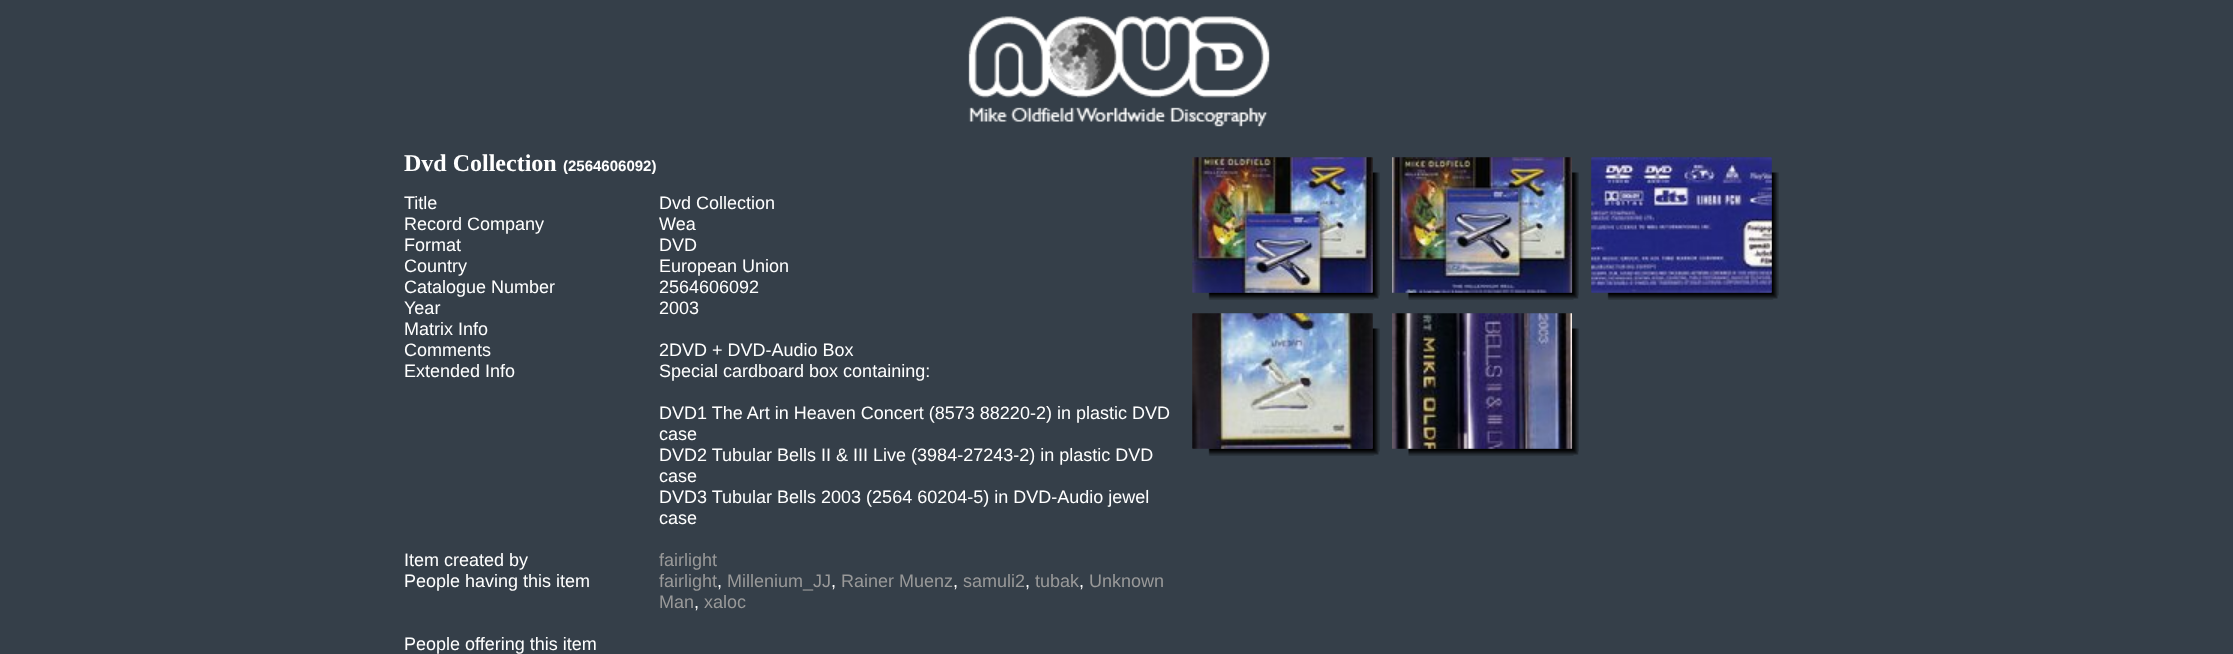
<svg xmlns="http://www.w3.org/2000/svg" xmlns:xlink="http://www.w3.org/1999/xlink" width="2233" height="654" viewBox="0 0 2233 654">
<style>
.cls-1{font:bold 24px Liberation Serif;fill:#ffffff}
.cls-2{font:bold 15px Liberation Sans;fill:#ffffff}
.cls-3{font:18px Liberation Sans;fill:#ffffff}
.cls-4{font:18px Liberation Sans;fill:#999999}
</style>
<rect width="100%" height="100%" fill="#353f49"/>
<image xlink:href="image0.png" x="968" y="16" width="302" height="111"/>
<image xlink:href="image1.png" x="1192" y="157" width="188" height="143"/>
<image xlink:href="image2.png" x="1192" y="157" width="181" height="136"/>
<image xlink:href="image3.png" x="1392" y="157" width="187" height="143"/>
<image xlink:href="image4.png" x="1392" y="157" width="180" height="136"/>
<image xlink:href="image5.png" x="1591" y="157" width="188" height="143"/>
<image xlink:href="image6.png" x="1591" y="157" width="181" height="136"/>
<image xlink:href="image7.png" x="1192" y="313" width="188" height="143"/>
<image xlink:href="image8.png" x="1192" y="313" width="181" height="136"/>
<image xlink:href="image9.png" x="1392" y="313" width="187" height="143"/>
<image xlink:href="image10.png" x="1392" y="313" width="180" height="136"/>
<text class="cls-1" x="404" y="171">Dvd Collection</text>
<text class="cls-2" x="563" y="171">(2564606092)</text>
<text class="cls-3" x="404" y="209">Title</text>
<text class="cls-3" x="659" y="209">Dvd Collection</text>
<text class="cls-3" x="404" y="230">Record Company</text>
<text class="cls-3" x="659" y="230">Wea</text>
<text class="cls-3" x="404" y="251">Format</text>
<text class="cls-3" x="659" y="251">DVD</text>
<text class="cls-3" x="404" y="272">Country</text>
<text class="cls-3" x="659" y="272">European Union</text>
<text class="cls-3" x="404" y="293">Catalogue Number</text>
<text class="cls-3" x="659" y="293">2564606092</text>
<text class="cls-3" x="404" y="314">Year</text>
<text class="cls-3" x="659" y="314">2003</text>
<text class="cls-3"><tspan x="404" y="335">Matrix Info</tspan><tspan x="404" y="356">Comments</tspan></text>
<text class="cls-3" x="659" y="356">2DVD + DVD-Audio Box</text>
<text class="cls-3" x="404" y="377">Extended Info</text>
<text class="cls-3" x="659" y="377">Special cardboard box containing:</text>
<text class="cls-3"><tspan x="659" y="419">DVD1 The Art in Heaven Concert (8573 88220-2) in plastic DVD</tspan><tspan x="659" y="440">case</tspan><tspan x="659" y="461">DVD2 Tubular Bells II &amp; III Live (3984-27243-2) in plastic DVD</tspan><tspan x="659" y="482">case</tspan><tspan x="659" y="503">DVD3 Tubular Bells 2003 (2564 60204-5) in DVD-Audio jewel</tspan><tspan x="659" y="524">case</tspan></text>
<text class="cls-3" x="404" y="566">Item created by</text>
<text class="cls-4" x="659" y="566">fairlight</text>
<text class="cls-3" x="404" y="587">People having this item</text>
<text class="cls-4" x="659" y="587">fairlight</text>
<text class="cls-3" x="717" y="587">,</text>
<text class="cls-4" x="727" y="587">Millenium_JJ</text>
<text class="cls-3" x="831" y="587">,</text>
<text class="cls-4" x="841" y="587">Rainer Muenz</text>
<text class="cls-3" x="953" y="587">,</text>
<text class="cls-4" x="963" y="587">samuli2</text>
<text class="cls-3" x="1025" y="587">,</text>
<text class="cls-4" x="1035" y="587">tubak</text>
<text class="cls-3" x="1079" y="587">,</text>
<text class="cls-4" x="1089" y="587">Unknown</text>
<text class="cls-4" x="659" y="608">Man</text>
<text class="cls-3" x="694" y="608">,</text>
<text class="cls-4" x="704" y="608">xaloc</text>
<text class="cls-3" x="404" y="650">People offering this item</text>
</svg>
